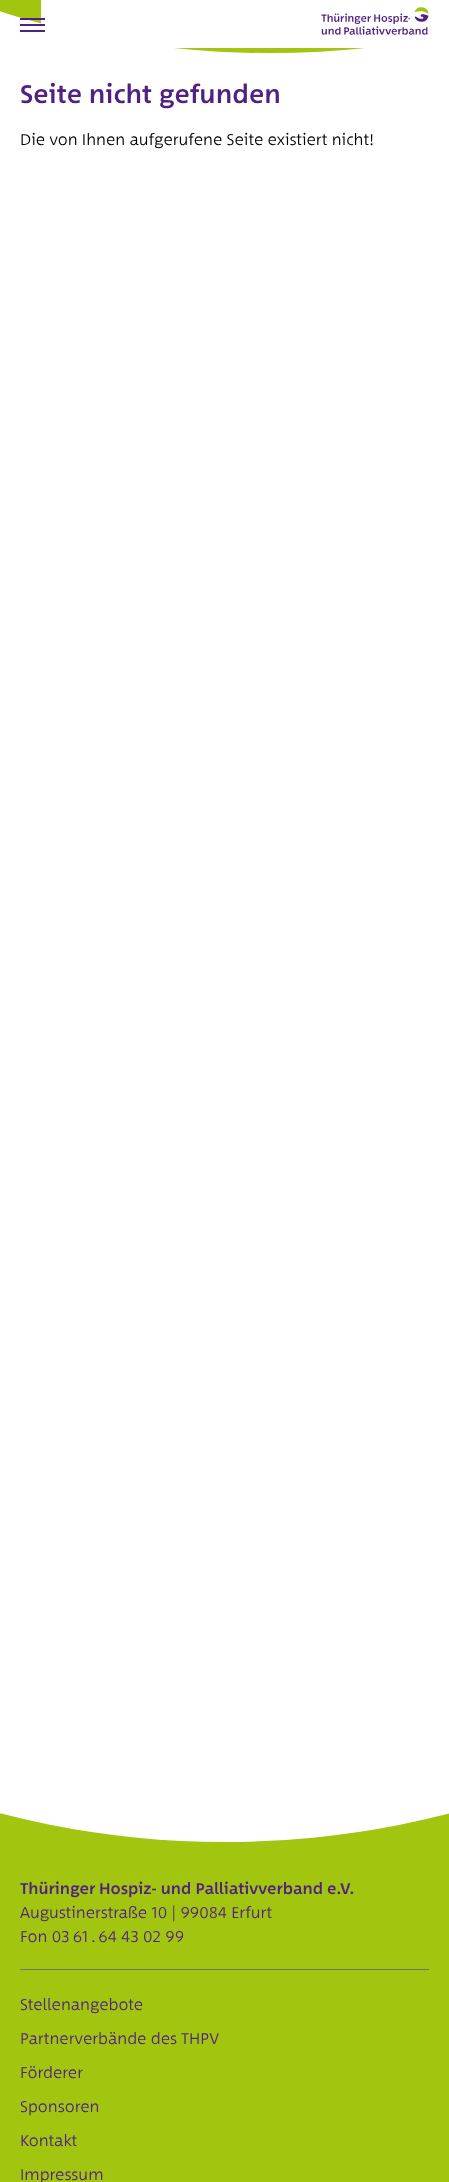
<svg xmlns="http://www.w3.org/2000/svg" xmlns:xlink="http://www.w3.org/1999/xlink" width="449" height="2182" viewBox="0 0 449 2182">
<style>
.cls-1{font:26px 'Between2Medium';fill:#502182}
.cls-2{font:16px 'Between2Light';fill:#000000}
.cls-3{font:16px 'Between2Medium';fill:#502182}
.cls-4{font:16px 'Between2Light';fill:#502182}
</style>
<rect width="100%" height="100%" fill="#ffffff"/>
<rect fill="#a2c510" x="0" y="1813" width="449" height="369"/>
<circle fill="#ffffff" cx="225" cy="944" r="898"/>
<rect fill="#a2c510" x="-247" y="-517" width="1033" height="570" rx="516.5"/>
<rect fill="#ffffff" x="41" y="0" width="408" height="48"/>
<rect fill="#502182" x="20" y="24" width="25" height="2"/>
<rect fill="#502182" x="20" y="18" width="25" height="2"/>
<rect fill="#502182" x="20" y="30" width="25" height="2"/>
<image xlink:href="image0.png" x="321" y="7" width="108" height="28"/>
<rect fill="#707070" x="20" y="1969" width="409" height="1"/>
<text class="cls-1" x="20" y="103">Seite nicht gefunden</text>
<text class="cls-2" x="20" y="145">Die von Ihnen aufgerufene Seite existiert nicht!</text>
<text class="cls-3" x="20" y="1894">Thüringer Hospiz- und Palliativverband e.V.</text>
<text class="cls-4"><tspan x="20" y="1918">Augustinerstraße 10 | 99084 Erfurt</tspan><tspan x="20" y="1942">Fon 03 61 . 64 43 02 99</tspan></text>
<text class="cls-4" x="20" y="2010">Stellenangebote</text>
<text class="cls-4" x="20" y="2044">Partnerverbände des THPV</text>
<text class="cls-4" x="20" y="2078">Förderer</text>
<text class="cls-4" x="20" y="2112">Sponsoren</text>
<text class="cls-4" x="20" y="2146">Kontakt</text>
<text class="cls-4" x="20" y="2180">Impressum</text>
</svg>
